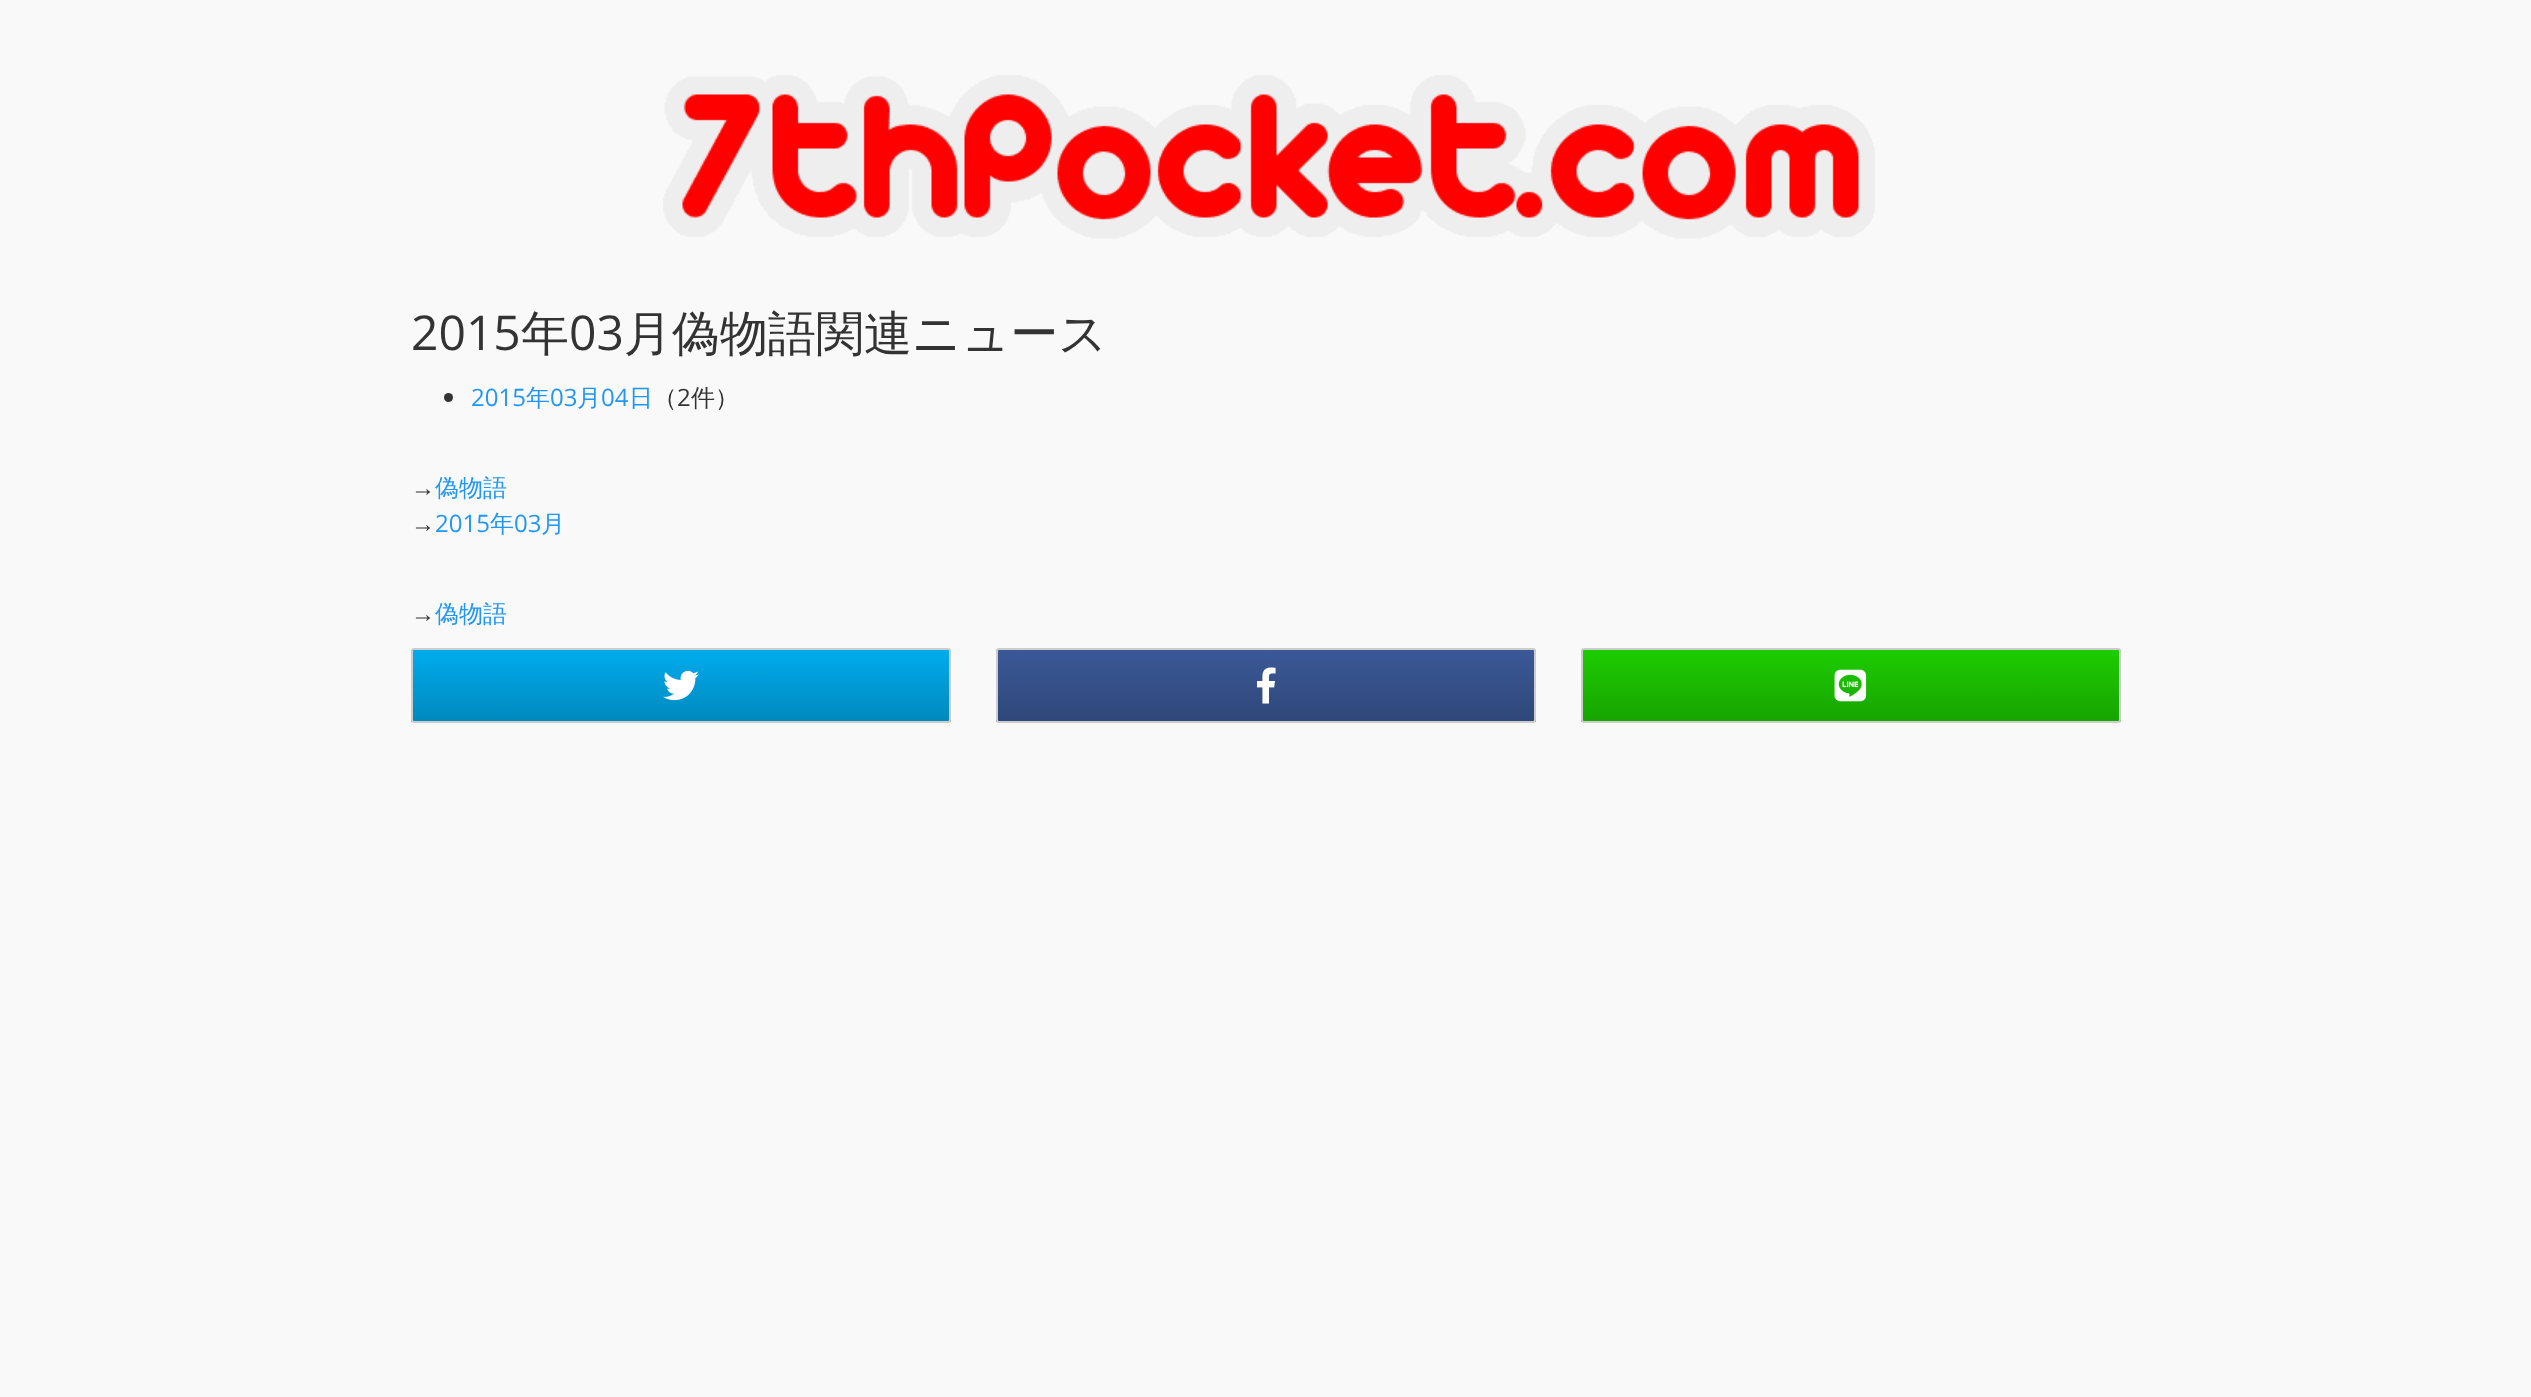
<svg xmlns="http://www.w3.org/2000/svg" xmlns:xlink="http://www.w3.org/1999/xlink" width="2531" height="1397" viewBox="0 0 2531 1397">
<style>
.cls-1{font:48px Open Sans;fill:#333333}
.cls-2{font:500 48px WenQuanYi Zen Hei;fill:#333333}
.cls-3{font:24px Open Sans;fill:#2196f3}
.cls-4{font:500 24px WenQuanYi Zen Hei;fill:#2196f3}
.cls-5{font:500 24px WenQuanYi Zen Hei;fill:#333333}
.cls-6{font:24px Open Sans;fill:#333333}
.cls-7{font:24px Liberation Sans;fill:#333333}
</style>
<defs>
<clipPath id="clip1"><rect x="411" y="648" width="540" height="75" rx="3"/></clipPath>
<linearGradient id="g1" gradientUnits="userSpaceOnUse" x1="681" y1="650" x2="681" y2="722"><stop offset="0" stop-color="#00aced"/><stop offset="0.5" stop-color="#009ad5"/><stop offset="1" stop-color="#0089bd"/></linearGradient>
<clipPath id="clip2"><rect x="996" y="648" width="540" height="75" rx="3"/></clipPath>
<linearGradient id="g2" gradientUnits="userSpaceOnUse" x1="1266" y1="650" x2="1266" y2="722"><stop offset="0" stop-color="#3b5998"/><stop offset="0.5" stop-color="#355088"/><stop offset="1" stop-color="#2f4779"/></linearGradient>
<clipPath id="clip3"><rect x="1581" y="648" width="540" height="75" rx="3"/></clipPath>
<linearGradient id="g3" gradientUnits="userSpaceOnUse" x1="1851" y1="650" x2="1851" y2="722"><stop offset="0" stop-color="#1dcd00"/><stop offset="0.5" stop-color="#1ab800"/><stop offset="1" stop-color="#17a400"/></linearGradient>
</defs>
<rect width="100%" height="100%" fill="#f9f9f9"/>
<image xlink:href="image0.png" x="663" y="75" width="1212" height="164"/>
<circle fill="#333333" cx="448.5" cy="397.5" r="4.5"/>
<g clip-path="url(#clip1)">
<rect fill="url(#g1)" x="411" y="650" width="540" height="72"/>
</g>
<rect fill="none" stroke="#cccccc" stroke-width="2" x="412" y="649" width="538" height="73" rx="2"/>
<image xlink:href="image1.png" x="663" y="670" width="36" height="31"/>
<g clip-path="url(#clip2)">
<rect fill="url(#g2)" x="996" y="650" width="540" height="72"/>
</g>
<rect fill="none" stroke="#cccccc" stroke-width="2" x="997" y="649" width="538" height="73" rx="2"/>
<image xlink:href="image2.png" x="1257" y="667" width="19" height="37"/>
<g clip-path="url(#clip3)">
<rect fill="url(#g3)" x="1581" y="650" width="540" height="72"/>
</g>
<rect fill="none" stroke="#cccccc" stroke-width="2" x="1582" y="649" width="538" height="73" rx="2"/>
<image xlink:href="image3.png" x="1834" y="669" width="33" height="33"/>
<text class="cls-1" x="411" y="350">2015</text>
<text class="cls-2" x="521" y="350">年</text>
<text class="cls-1" x="569" y="350">03</text>
<text class="cls-2" x="624" y="350">月偽物語関連ニュース</text>
<text class="cls-3" x="471" y="406">2015</text>
<text class="cls-4" x="526" y="406">年</text>
<text class="cls-3" x="550" y="406">03</text>
<text class="cls-4" x="577" y="406">月</text>
<text class="cls-3" x="601" y="406">04</text>
<text class="cls-4" x="629" y="406">日</text>
<text class="cls-5" x="653" y="406">（</text>
<text class="cls-6" x="677" y="406">2</text>
<text class="cls-5" x="691" y="406">件）</text>
<text class="cls-7" x="411" y="496">→</text>
<text class="cls-4" x="435" y="496">偽物語</text>
<text class="cls-7" x="411" y="532">→</text>
<text class="cls-3" x="435" y="532">2015</text>
<text class="cls-4" x="490" y="532">年</text>
<text class="cls-3" x="514" y="532">03</text>
<text class="cls-4" x="541" y="532">月</text>
<text class="cls-7" x="411" y="622">→</text>
<text class="cls-4" x="435" y="622">偽物語</text>
</svg>
